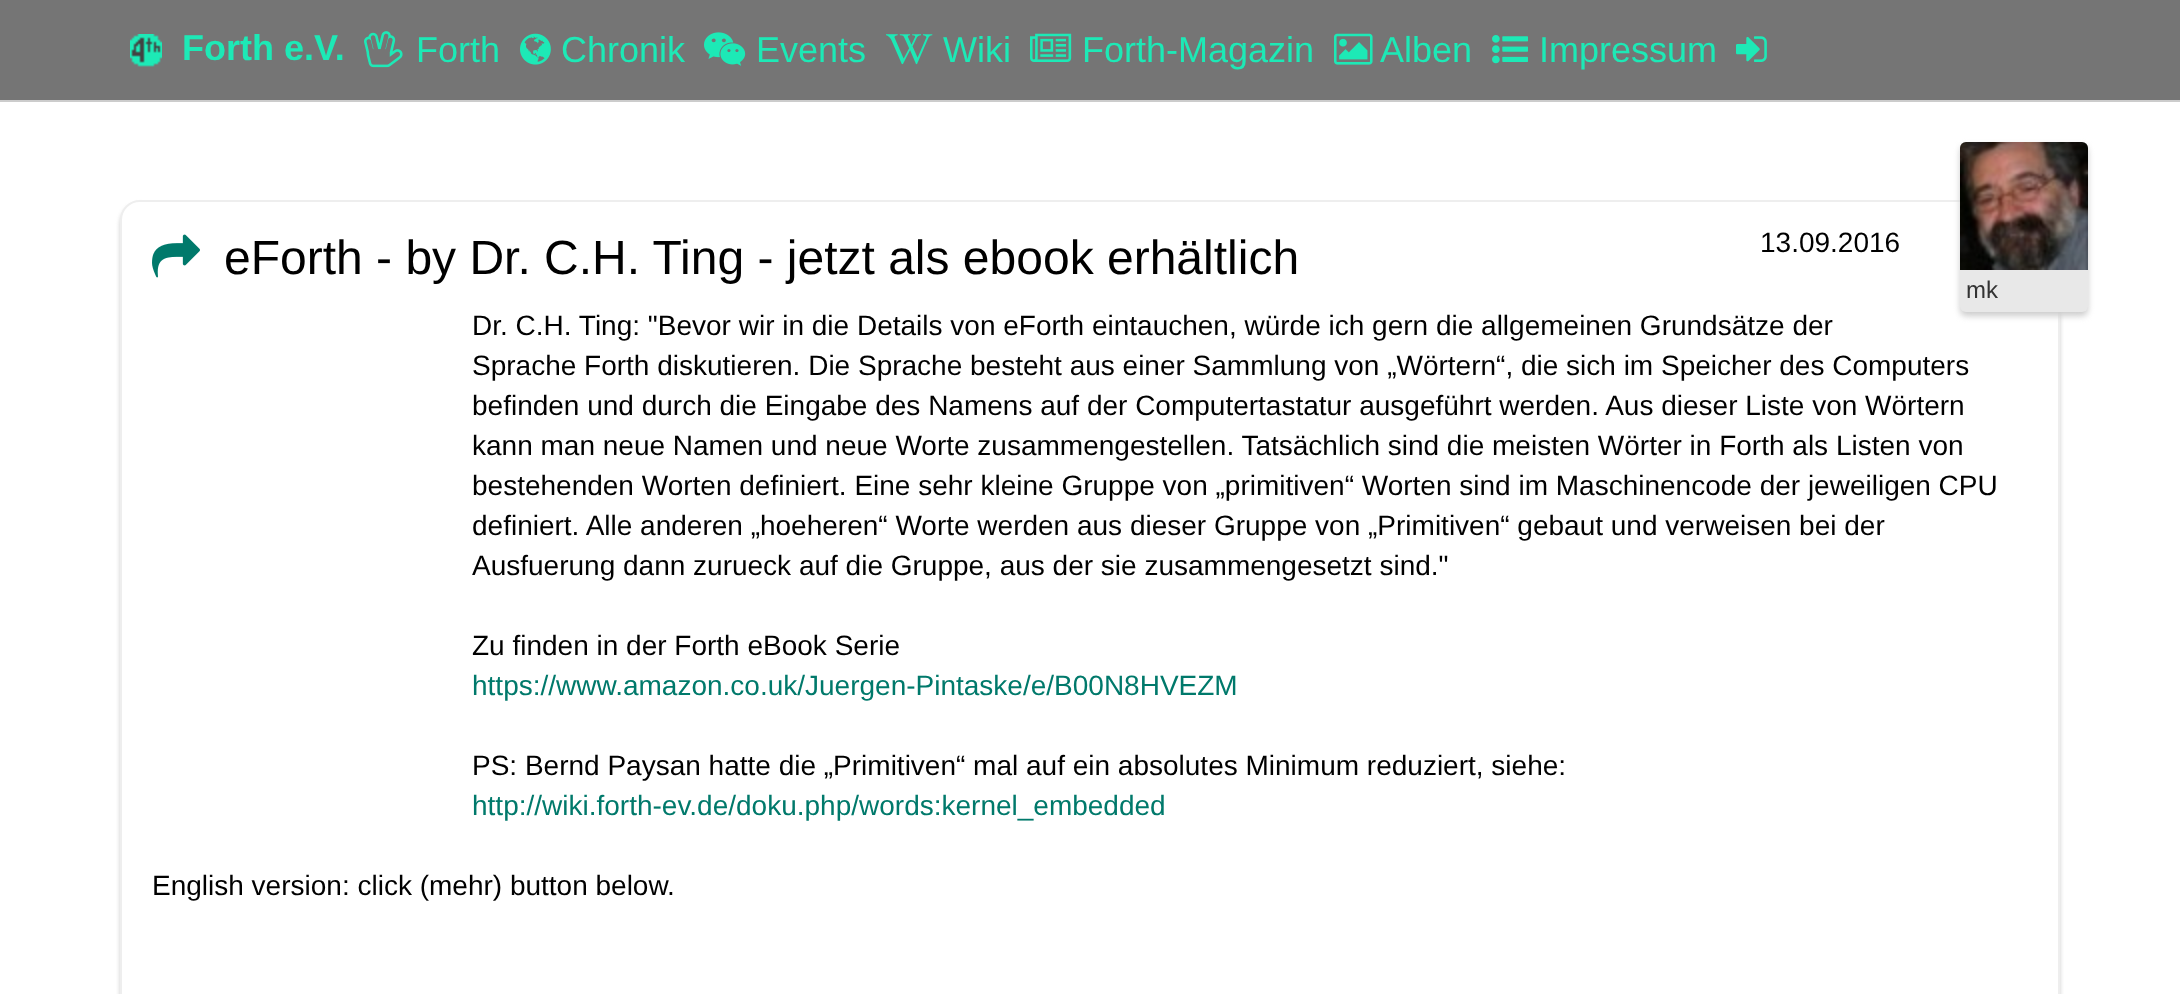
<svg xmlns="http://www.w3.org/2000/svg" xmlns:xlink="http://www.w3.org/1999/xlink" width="2180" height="994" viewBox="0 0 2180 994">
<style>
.cls-1{font:bold 36px Liberation Sans;fill:#1de9b6}
.cls-2{font:36px Liberation Sans;fill:#1de9b6}
.cls-3{font:48px Liberation Sans;fill:#000000}
.cls-4{font:28px Liberation Sans;fill:#000000}
.cls-5{font:24px Liberation Sans;fill:#333333}
.cls-6{font:28px Liberation Sans;fill:#00796b}
</style>
<rect width="100%" height="100%" fill="#ffffff"/>
<rect fill="#757575" x="0" y="0" width="2180" height="100"/>
<rect fill="#cccccc" x="0" y="100" width="2180" height="2"/>
<image xlink:href="image0.png" x="130" y="34" width="32" height="33"/>
<image xlink:href="image1.png" x="364" y="31" width="39" height="37"/>
<image xlink:href="image2.png" x="520" y="33" width="31" height="32"/>
<image xlink:href="image3.png" x="704" y="32" width="42" height="34"/>
<image xlink:href="image4.png" x="886" y="34" width="47" height="31"/>
<image xlink:href="image5.png" x="1030" y="33" width="42" height="29"/>
<image xlink:href="image6.png" x="1334" y="33" width="39" height="32"/>
<image xlink:href="image7.png" x="1492" y="35" width="36" height="29"/>
<image xlink:href="image8.png" x="1736" y="36" width="31" height="26"/>
<rect fill="#cccccc" filter="blur(2px)" x="120" y="204" width="1940" height="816" rx="20"/>
<rect fill="#ffffff" stroke="#eeeeee" stroke-width="2" x="121" y="201" width="1938" height="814" rx="19"/>
<image xlink:href="image9.png" x="152" y="234" width="48" height="44"/>
<rect fill="#cccccc" filter="blur(3px)" x="1960" y="146" width="128" height="170" rx="6"/>
<rect fill="#e8e8e8" x="1960" y="142" width="128" height="170" rx="6"/>
<image xlink:href="image10.png" x="1960" y="142" width="128" height="128"/>
<text class="cls-1" x="182" y="60">Forth e.V.</text>
<text class="cls-2" x="416" y="62">Forth</text>
<text class="cls-2" x="561" y="62">Chronik</text>
<text class="cls-2" x="756" y="62">Events</text>
<text class="cls-2" x="943" y="62">Wiki</text>
<text class="cls-2" x="1082" y="62">Forth-Magazin</text>
<text class="cls-2" x="1380" y="62">Alben</text>
<text class="cls-2" x="1539" y="62">Impressum</text>
<text class="cls-3" x="224" y="274">eForth - by Dr. C.H. Ting - jetzt als ebook erhältlich</text>
<text class="cls-4" x="1760" y="252">13.09.2016</text>
<text class="cls-5" x="1966" y="298">mk</text>
<text class="cls-4"><tspan x="472" y="335">Dr. C.H. Ting: "Bevor wir in die Details von eForth eintauchen, würde ich gern die allgemeinen Grundsätze der</tspan><tspan x="472" y="375">Sprache Forth diskutieren. Die Sprache besteht aus einer Sammlung von „Wörtern“, die sich im Speicher des Computers</tspan><tspan x="472" y="415">befinden und durch die Eingabe des Namens auf der Computertastatur ausgeführt werden. Aus dieser Liste von Wörtern</tspan><tspan x="472" y="455">kann man neue Namen und neue Worte zusammengestellen. Tatsächlich sind die meisten Wörter in Forth als Listen von</tspan><tspan x="472" y="495">bestehenden Worten definiert. Eine sehr kleine Gruppe von „primitiven“ Worten sind im Maschinencode der jeweiligen CPU</tspan><tspan x="472" y="535">definiert. Alle anderen „hoeheren“ Worte werden aus dieser Gruppe von „Primitiven“ gebaut und verweisen bei der</tspan><tspan x="472" y="575">Ausfuerung dann zurueck auf die Gruppe, aus der sie zusammengesetzt sind."</tspan></text>
<text class="cls-4" x="472" y="655">Zu finden in der Forth eBook Serie</text>
<text class="cls-6" x="472" y="695">https://www.amazon.co.uk/Juergen-Pintaske/e/B00N8HVEZM</text>
<text class="cls-4" x="472" y="775">PS: Bernd Paysan hatte die „Primitiven“ mal auf ein absolutes Minimum reduziert, siehe:</text>
<text class="cls-6" x="472" y="815">http://wiki.forth-ev.de/doku.php/words:kernel_embedded</text>
<text class="cls-4" x="152" y="895">English version: click (mehr) button below.</text>
</svg>
